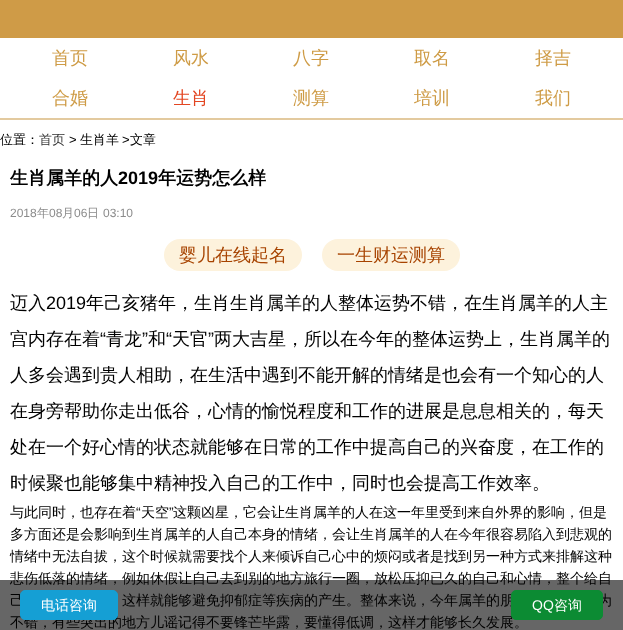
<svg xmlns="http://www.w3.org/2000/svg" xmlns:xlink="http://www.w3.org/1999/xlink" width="623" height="630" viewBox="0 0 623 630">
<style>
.cls-1{font:500 18px WenQuanYi Zen Hei;fill:#ce9b45}
.cls-2{font:500 18px WenQuanYi Zen Hei;fill:#e34521}
.cls-3{font:500 13px WenQuanYi Zen Hei;fill:#000000}
.cls-4{font:500 13px WenQuanYi Zen Hei;fill:#333333}
.cls-5{font:13px Liberation Sans;fill:#000000}
.cls-6{font:bold 18px WenQuanYi Zen Hei;fill:#000000}
.cls-7{font:bold 18px Liberation Sans;fill:#000000}
.cls-8{font:12px Liberation Sans;fill:#8b8b8b}
.cls-9{font:500 12px WenQuanYi Zen Hei;fill:#8b8b8b}
.cls-10{font:500 18px WenQuanYi Zen Hei;fill:#a74300}
.cls-11{font:500 18px WenQuanYi Zen Hei;fill:#000000}
.cls-12{font:18px Liberation Sans;fill:#000000}
.cls-13{font:500 14px WenQuanYi Zen Hei;fill:#000000}
.cls-14{font:14px Liberation Sans;fill:#000000}
.cls-15{font:500 14px WenQuanYi Zen Hei;fill:#ffffff}
.cls-16{font:14px Liberation Sans;fill:#ffffff}
</style>
<rect width="100%" height="100%" fill="#ffffff"/>
<rect fill="#cf9b47" x="0" y="0" width="623" height="38"/>
<rect fill="#e3ca9f" x="0" y="118" width="623" height="2"/>
<rect fill="#fdf2dc" x="164" y="239" width="138" height="32" rx="16"/>
<rect fill="#fdf2dc" x="322" y="239" width="138" height="32" rx="16"/>
<text class="cls-1" x="52" y="64">首页</text>
<text class="cls-1" x="173" y="64">风水</text>
<text class="cls-1" x="293" y="64">八字</text>
<text class="cls-1" x="414" y="64">取名</text>
<text class="cls-1" x="535" y="64">择吉</text>
<text class="cls-1" x="52" y="104">合婚</text>
<text class="cls-2" x="173" y="104">生肖</text>
<text class="cls-1" x="293" y="104">测算</text>
<text class="cls-1" x="414" y="104">培训</text>
<text class="cls-1" x="535" y="104">我们</text>
<text class="cls-3" x="0" y="144">位置：</text>
<text class="cls-4" x="39" y="144">首页</text>
<text class="cls-5" x="69" y="144">&gt;</text>
<text class="cls-3" x="80" y="144">生肖羊</text>
<text class="cls-5" x="122" y="144">&gt;</text>
<text class="cls-3" x="130" y="144">文章</text>
<text class="cls-6" x="10" y="184">生肖属羊的人</text>
<text class="cls-7" x="118" y="184">2019</text>
<text class="cls-6" x="158" y="184">年运势怎么样</text>
<text class="cls-8" x="10" y="217">2018</text>
<text class="cls-9" x="37" y="217">年</text>
<text class="cls-8" x="49" y="217">08</text>
<text class="cls-9" x="62" y="217">月</text>
<text class="cls-8" x="74" y="217">06</text>
<text class="cls-9" x="87" y="217">日</text>
<text class="cls-8" x="103" y="217">03:10</text>
<text class="cls-10" x="179" y="261">婴儿在线起名</text>
<text class="cls-10" x="337" y="261">一生财运测算</text>
<text class="cls-11" x="10" y="309">迈入</text>
<text class="cls-12" x="46" y="309">2019</text>
<text class="cls-11" x="86" y="309">年己亥猪年，生肖生肖属羊的人整体运势不错，在生肖属羊的人主</text>
<text class="cls-11" x="10" y="345">宫内存在着</text>
<text class="cls-12" x="100" y="345">“</text>
<text class="cls-11" x="106" y="345">青龙</text>
<text class="cls-12" x="142" y="345">”</text>
<text class="cls-11" x="148" y="345">和</text>
<text class="cls-12" x="166" y="345">“</text>
<text class="cls-11" x="172" y="345">天官</text>
<text class="cls-12" x="208" y="345">”</text>
<text class="cls-11" x="214" y="345">两大吉星，所以在今年的整体运势上，生肖属羊的</text>
<text class="cls-11" x="10" y="381">人多会遇到贵人相助，在生活中遇到不能开解的情绪是也会有一个知心的人</text>
<text class="cls-11" x="10" y="417">在身旁帮助你走出低谷，心情的愉悦程度和工作的进展是息息相关的，每天</text>
<text class="cls-11" x="10" y="453">处在一个好心情的状态就能够在日常的工作中提高自己的兴奋度，在工作的</text>
<text class="cls-11" x="10" y="489">时候聚也能够集中精神投入自己的工作中，同时也会提高工作效率。</text>
<text class="cls-13" x="10" y="517">与此同时，也存在着</text>
<text class="cls-14" x="136" y="517">“</text>
<text class="cls-13" x="141" y="517">天空</text>
<text class="cls-14" x="169" y="517">”</text>
<text class="cls-13" x="173" y="517">这颗凶星，它会让生肖属羊的人在这一年里受到来自外界的影响，但是</text>
<text class="cls-13"><tspan x="10" y="539">多方面还是会影响到生肖属羊的人自己本身的情绪，会让生肖属羊的人在今年很容易陷入到悲观的</tspan><tspan x="10" y="561">情绪中无法自拔，这个时候就需要找个人来倾诉自己心中的烦闷或者是找到另一种方式来排解这种</tspan><tspan x="10" y="583">悲伤低落的情绪，例如休假让自己去到别的地方旅行一圈，放松压抑已久的自己和心情，整个给自</tspan><tspan x="10" y="605">己</tspan></text>
<text class="cls-13" x="122" y="605">这样就能够避免抑郁症等疾病的产生。整体来说，今年属羊的朋</text>
<text class="cls-13" x="598" y="605">为</text>
<text class="cls-13" x="10" y="627">不错，有些突出的地方儿谣记得不要锋芒毕露，要懂得低调，这样才能够长久发展。</text>
<rect fill="#000000" fill-opacity="0.6" x="0" y="580" width="623" height="50"/>
<rect fill="#159fd4" stroke="#159fd4" x="20.5" y="590.5" width="97" height="29" rx="4.5"/>
<text class="cls-15" x="41" y="610">电话咨询</text>
<rect fill="#0c8b33" stroke="#0c8b33" x="511.5" y="590.5" width="91" height="29" rx="4.5"/>
<text class="cls-16" x="532" y="610">QQ</text>
<text class="cls-15" x="554" y="610">咨询</text>
</svg>
